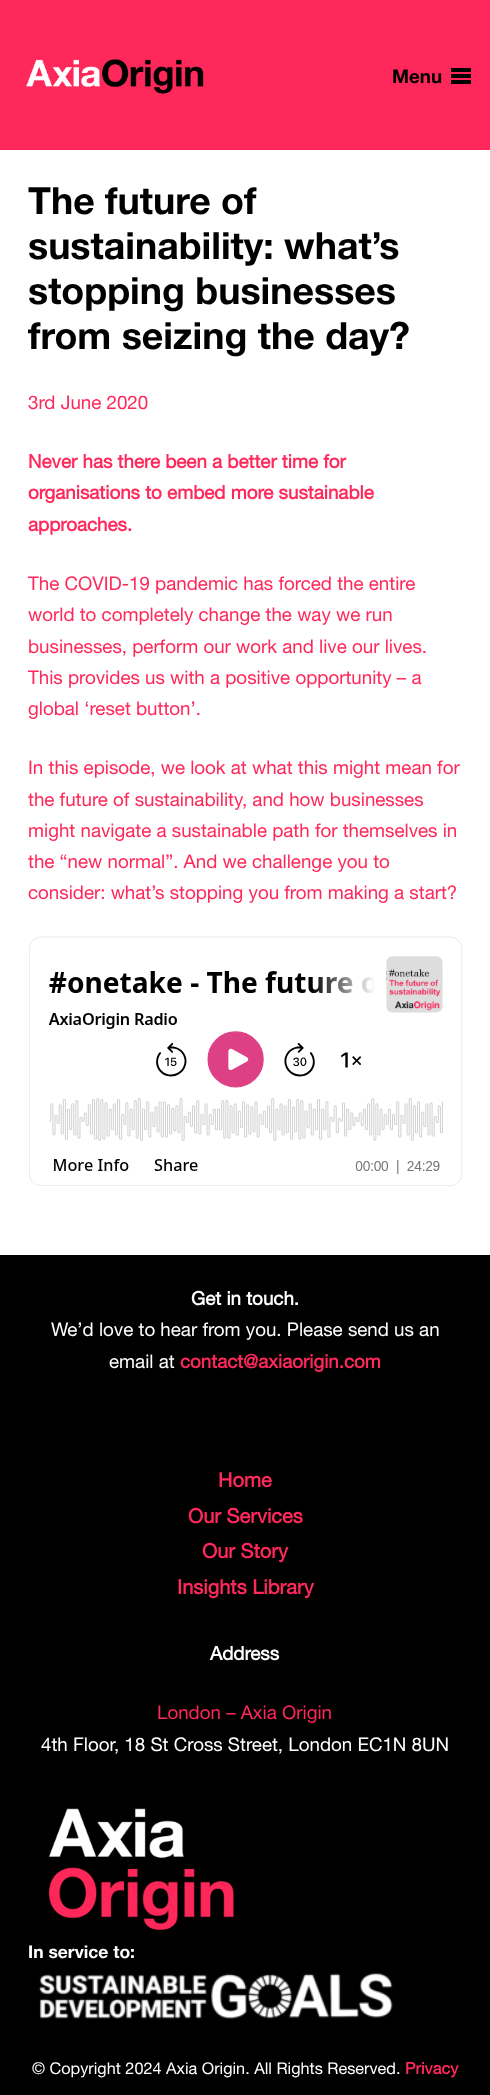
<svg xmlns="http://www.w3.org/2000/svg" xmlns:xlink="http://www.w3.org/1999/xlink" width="490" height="2095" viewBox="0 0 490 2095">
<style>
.cls-1{font:bold 18.75px Helvetica Neue;fill:#000000}
.cls-2{font:bold 37.5px Helvetica Neue;fill:#000000}
.cls-3{font:18.75px Helvetica Neue;fill:#ff285a}
.cls-4{font:bold 18.75px 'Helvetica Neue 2';fill:#ff285a}
.cls-5{font:bold 18.75px 'Helvetica Neue 2';fill:#ffffff}
.cls-6{font:18.75px Helvetica Neue;fill:#ffffff}
.cls-7{font:bold 20px 'Helvetica Neue 2';fill:#ff285a}
.cls-8{font:bold 17.5px Helvetica Neue;fill:#ffffff}
.cls-9{font:16.25px Helvetica Neue;fill:#ffffff}
.cls-10{font:bold 16.25px 'Helvetica Neue 2';fill:#ff285a}
</style>
<rect width="100%" height="100%" fill="#ffffff"/>
<rect fill="#ff285a" x="0" y="0" width="490" height="150"/>
<image xlink:href="image0.png" x="26" y="59" width="178" height="35"/>
<rect fill="#000000" x="451" y="74" width="20" height="4"/>
<rect fill="#000000" x="451" y="68" width="20" height="4"/>
<rect fill="#000000" x="451" y="80" width="20" height="4"/>
<image xlink:href="image1.png" x="29" y="936" width="434" height="250"/>
<rect fill="#000000" x="0" y="1255" width="490" height="840"/>
<image xlink:href="image2.png" x="48" y="1808" width="186" height="122"/>
<image xlink:href="image3.png" x="38" y="1972" width="355" height="47"/>
<text class="cls-1" x="392" y="83">Menu</text>
<text class="cls-2"><tspan x="28" y="214">The future of</tspan><tspan x="28" y="259">sustainability: what’s</tspan><tspan x="28" y="304">stopping businesses</tspan><tspan x="28" y="349">from seizing the day?</tspan></text>
<text class="cls-3" x="28" y="409">3rd June 2020</text>
<text class="cls-4"><tspan x="28" y="468">Never has there been a better time for</tspan><tspan x="28" y="499">organisations to embed more sustainable</tspan><tspan x="28" y="531">approaches.</tspan></text>
<text class="cls-3"><tspan x="28" y="590">The COVID-19 pandemic has forced the entire</tspan><tspan x="28" y="621">world to completely change the way we run</tspan><tspan x="28" y="653">businesses, perform our work and live our lives.</tspan><tspan x="28" y="684">This provides us with a positive opportunity – a</tspan><tspan x="28" y="715">global ‘reset button’.</tspan></text>
<text class="cls-3"><tspan x="28" y="774">In this episode, we look at what this might mean for</tspan><tspan x="28" y="806">the future of sustainability, and how businesses</tspan><tspan x="28" y="837">might navigate a sustainable path for themselves in</tspan><tspan x="28" y="868">the “new normal”. And we challenge you to</tspan><tspan x="28" y="899">consider: what’s stopping you from making a start?</tspan></text>
<text class="cls-5" x="191" y="1305">Get in touch.</text>
<text class="cls-6" x="51" y="1336">We’d love to hear from you. Please send us an</text>
<text class="cls-6" x="109" y="1368">email at</text>
<text class="cls-4" x="180" y="1368">contact@axiaorigin.com</text>
<text class="cls-7" x="218" y="1487">Home</text>
<text class="cls-7" x="188" y="1523">Our Services</text>
<text class="cls-7" x="202" y="1558">Our Story</text>
<text class="cls-7" x="177" y="1594">Insights Library</text>
<text class="cls-5" x="210" y="1660">Address</text>
<text class="cls-3" x="157" y="1719">London – Axia Origin</text>
<text class="cls-6" x="41" y="1751">4th Floor, 18 St Cross Street, London EC1N 8UN</text>
<text class="cls-8" x="28" y="1958">In service to:</text>
<text class="cls-9" x="32" y="2074">© Copyright 2024 Axia Origin. All Rights Reserved.</text>
<text class="cls-10" x="405" y="2074">Privacy</text>
</svg>
